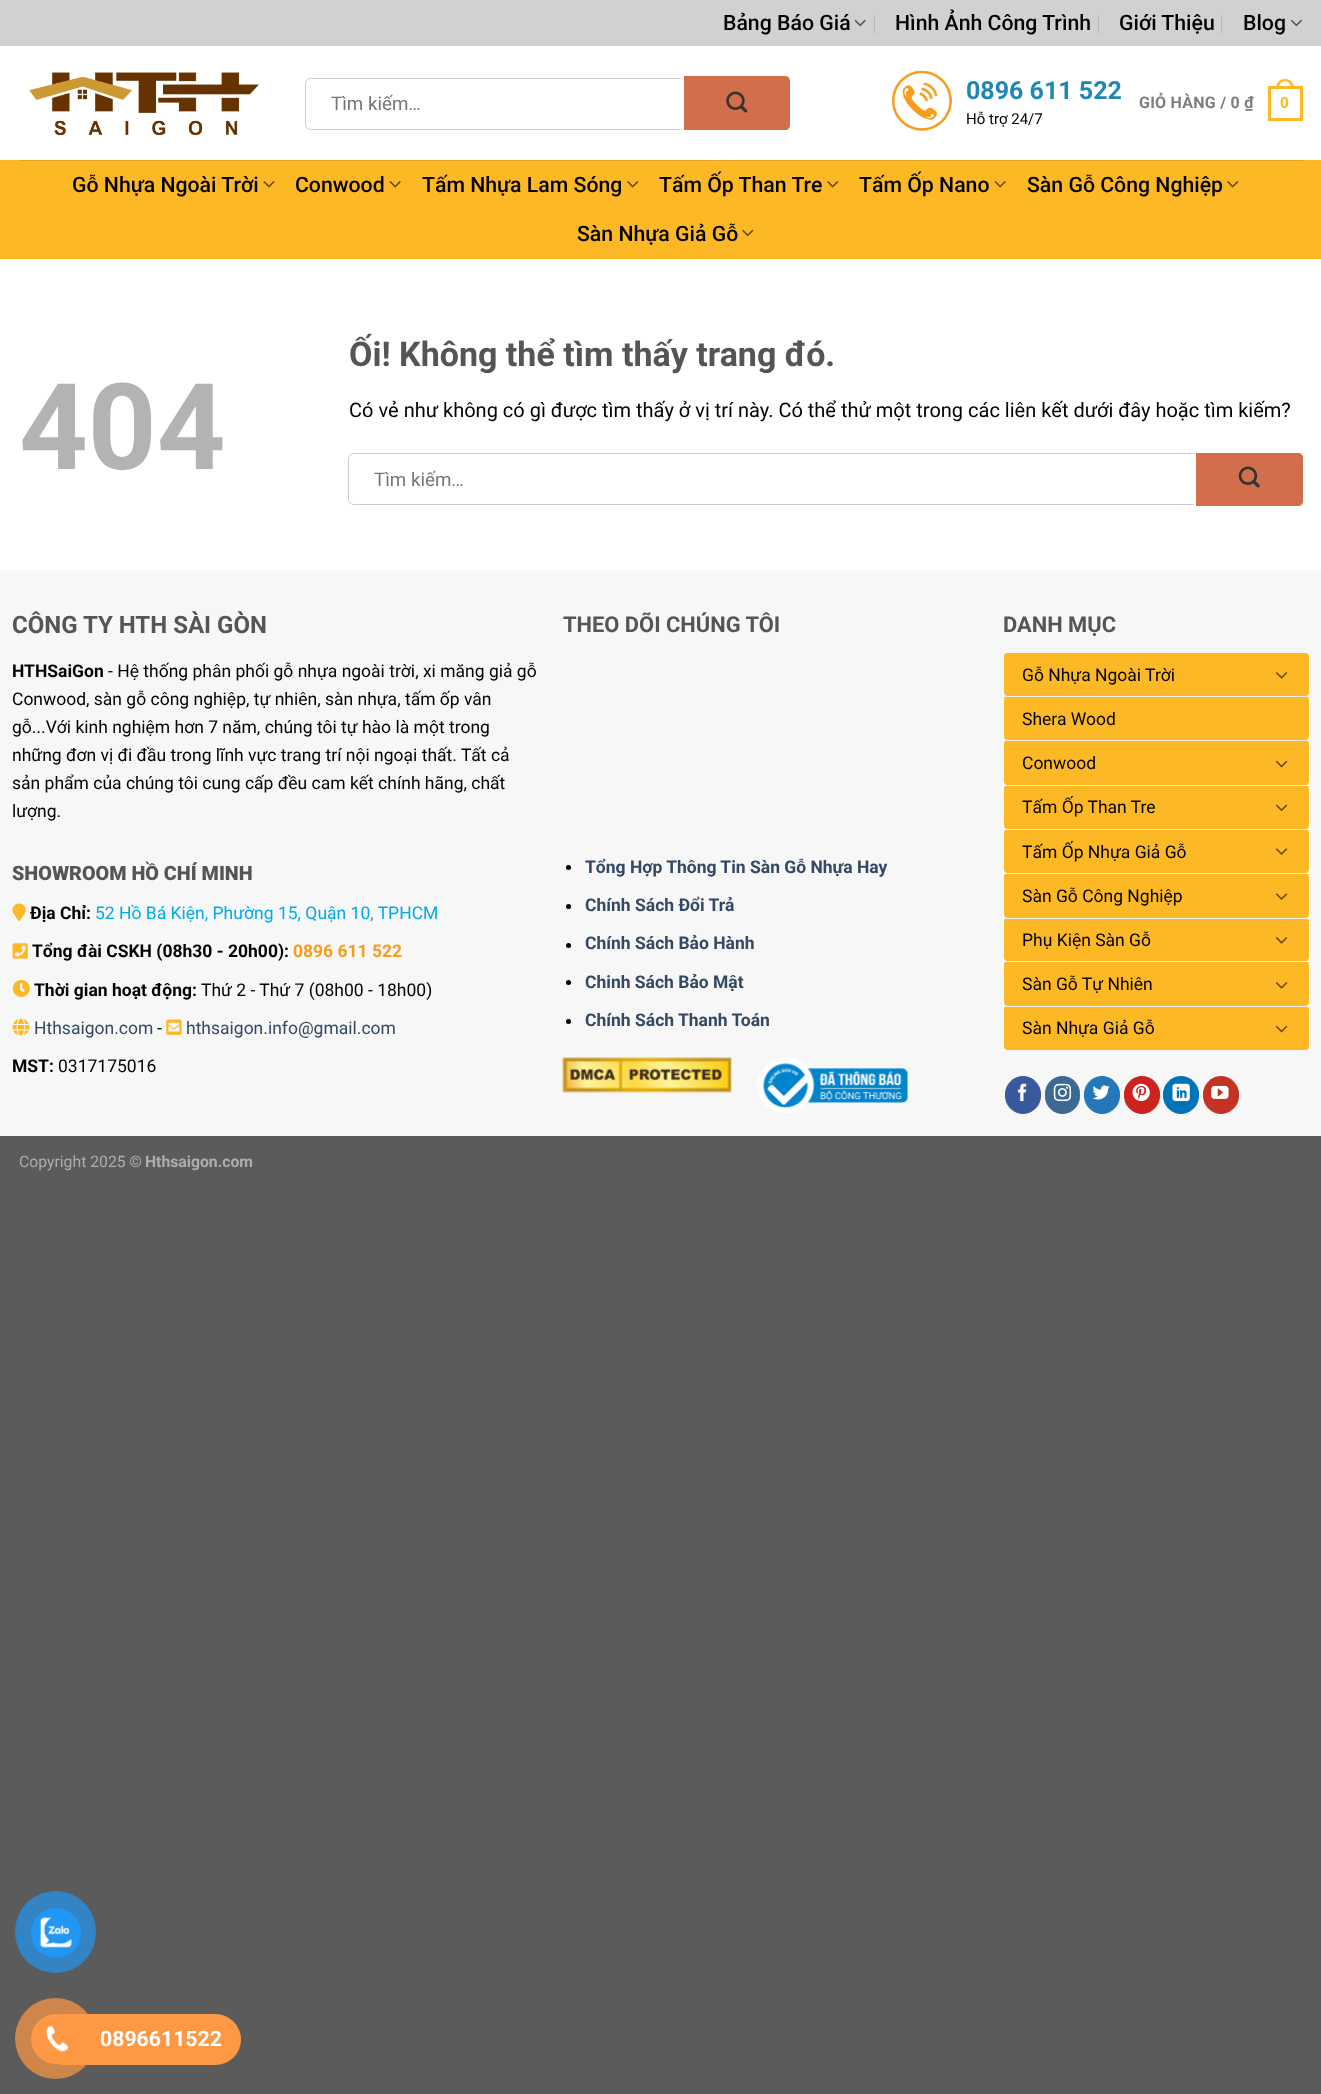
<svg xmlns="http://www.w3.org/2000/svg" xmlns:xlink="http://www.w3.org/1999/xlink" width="1321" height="2094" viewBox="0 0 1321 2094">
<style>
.cls-1{font:500 21.25px Roboto;fill:#000000}
.cls-2{font:18.75px Roboto;fill:#757575}
.cls-3{font:bold 25px Roboto;fill:#2087b3}
.cls-4{font:15px Roboto;fill:#000000}
.cls-5{font:bold 16px Roboto;letter-spacing:0.25px;fill:#7d7d7d}
.cls-6{font:bold 16px Liberation Sans;letter-spacing:0.25px;fill:#fdb825}
.cls-7{font:bold 120px Roboto;fill:#b3b3b3}
.cls-8{font:bold 34px Roboto;fill:#555555}
.cls-9{font:20px Roboto;fill:#000000}
.cls-10{font:bold 24px Roboto;fill:#555555}
.cls-11{font:bold 17.5px Roboto;fill:#000000}
.cls-12{font:17.5px Roboto;fill:#000000}
.cls-13{font:900 19.75px Roboto;fill:#555555}
.cls-14{font:17.5px Roboto;fill:#00aae7}
.cls-15{font:bold 17.5px Roboto;fill:#f99b1c}
.cls-16{font:17.5px Roboto;fill:#334862}
.cls-17{font:bold 21.9px Roboto;fill:#555555}
.cls-18{font:bold 17.5px Roboto;fill:#334862}
.cls-19{font:15.75px Roboto;fill:#adadad}
.cls-20{font:bold 15.75px Roboto;fill:#adadad}
.cls-21{font:bold 21.25px Roboto;fill:#ffffff}
</style>
<rect width="100%" height="100%" fill="#5b5b5b"/>
<rect fill="#ffffff" x="0" y="46" width="1321" height="524"/>
<rect fill="#d1d1d1" x="0" y="0" width="1321" height="46"/>
<image xlink:href="image0.png" x="854" y="19" width="12" height="8"/>
<rect fill="#bcbcbc" x="874" y="15" width="1" height="19"/>
<rect fill="#bcbcbc" x="1098" y="15" width="1" height="19"/>
<rect fill="#bcbcbc" x="1221" y="15" width="1" height="19"/>
<image xlink:href="image1.png" x="1290" y="19" width="12" height="8"/>
<image xlink:href="image2.png" x="29" y="72" width="230" height="64"/>
<rect fill="#626262" fill-opacity="0.32" filter="blur(0.5px)" x="305" y="78" width="380" height="52" rx="6"/>
<path fill="#ffffff" d="M311 79H684V129H311C308 129 306 127 306 124V84C306 81 308 79 311 79Z"/>
<path fill="#d26e4b" d="M684 76H785C788 76 790 78 790 81V125C790 128 788 130 785 130H684Z"/>
<image xlink:href="image3.png" x="726" y="91" width="22" height="22"/>
<image xlink:href="image4.png" x="892" y="70" width="60" height="61"/>
<rect fill="none" stroke="#fdb825" stroke-width="3" x="1269.5" y="87.5" width="32" height="32"/>
<path fill="#fdb825" fill-rule="evenodd" d="M1285 79C1291 79 1294 83.5 1294 89H1276C1276 83.5 1279 79 1285 79ZM1285 81C1289.5 81 1291 85 1291 89H1279C1279 85 1280.5 81 1285 81Z"/>
<rect fill="#fdb825" x="0" y="160" width="1321" height="99"/>
<rect fill="#e4a621" x="19" y="160" width="1284" height="1"/>
<image xlink:href="image5.png" x="263" y="181" width="12" height="7"/>
<image xlink:href="image6.png" x="389" y="181" width="12" height="7"/>
<image xlink:href="image7.png" x="627" y="181" width="12" height="7"/>
<image xlink:href="image7.png" x="827" y="181" width="12" height="7"/>
<image xlink:href="image6.png" x="994" y="181" width="12" height="7"/>
<image xlink:href="image7.png" x="1227" y="181" width="12" height="7"/>
<image xlink:href="image8.png" x="742" y="229" width="12" height="8"/>
<rect fill="#626262" fill-opacity="0.32" filter="blur(0.5px)" x="348" y="453" width="850" height="52" rx="6"/>
<path fill="#ffffff" d="M354 454H1196V504H354C351 504 349 502 349 499V459C349 456 351 454 354 454Z"/>
<path fill="#d26e4b" d="M1196 453H1298C1301 453 1303 455 1303 458V501C1303 504 1301 506 1298 506H1196Z"/>
<image xlink:href="image9.png" x="1238" y="466" width="22" height="22"/>
<rect fill="#f7f7f7" x="0" y="570" width="1321" height="566"/>
<image xlink:href="image10.png" x="12" y="903" width="14" height="18"/>
<image xlink:href="image11.png" x="12" y="943" width="16" height="16"/>
<image xlink:href="image12.png" x="12" y="980" width="18" height="17"/>
<image xlink:href="image13.png" x="12" y="1018" width="18" height="18"/>
<image xlink:href="image14.png" x="166" y="1019" width="16" height="16"/>
<circle fill="#000000" cx="568.5" cy="867.5" r="2.5"/>
<circle fill="#000000" cx="568.5" cy="906.5" r="2.5"/>
<circle fill="#000000" cx="568.5" cy="945.5" r="2.5"/>
<circle fill="#000000" cx="568.5" cy="982.5" r="2.5"/>
<circle fill="#000000" cx="568.5" cy="1021.5" r="2.5"/>
<image xlink:href="image15.png" x="562" y="1057" width="170" height="36"/>
<image xlink:href="image16.png" x="757" y="1057" width="151" height="56"/>
<rect fill="#fdb825" x="1004" y="653" width="305" height="43" rx="4"/>
<image xlink:href="image17.png" x="1276" y="672" width="12" height="7"/>
<rect fill="#fdb825" x="1004" y="696" width="305" height="44" rx="4"/>
<rect fill="#ececec" x="1006" y="696" width="302" height="1"/>
<rect fill="#fdb825" x="1004" y="740" width="305" height="45" rx="4"/>
<rect fill="#ececec" x="1006" y="740" width="302" height="1"/>
<image xlink:href="image18.png" x="1276" y="760" width="12" height="8"/>
<rect fill="#fdb825" x="1004" y="785" width="305" height="44" rx="4"/>
<rect fill="#ececec" x="1006" y="785" width="302" height="1"/>
<image xlink:href="image19.png" x="1276" y="804" width="12" height="8"/>
<rect fill="#fdb825" x="1004" y="829" width="305" height="44" rx="4"/>
<rect fill="#ececec" x="1006" y="829" width="302" height="1"/>
<image xlink:href="image20.png" x="1276" y="848" width="12" height="7"/>
<rect fill="#fdb825" x="1004" y="873" width="305" height="45" rx="4"/>
<rect fill="#ececec" x="1006" y="873" width="302" height="1"/>
<image xlink:href="image20.png" x="1276" y="893" width="12" height="7"/>
<rect fill="#fdb825" x="1004" y="918" width="305" height="43" rx="4"/>
<rect fill="#ececec" x="1006" y="918" width="302" height="1"/>
<image xlink:href="image17.png" x="1276" y="937" width="12" height="7"/>
<rect fill="#fdb825" x="1004" y="961" width="305" height="45" rx="4"/>
<rect fill="#ececec" x="1006" y="961" width="302" height="1"/>
<image xlink:href="image17.png" x="1276" y="982" width="12" height="7"/>
<rect fill="#fdb825" x="1004" y="1006" width="305" height="44" rx="4"/>
<rect fill="#ececec" x="1006" y="1006" width="302" height="1"/>
<image xlink:href="image18.png" x="1276" y="1025" width="12" height="8"/>
<rect fill="#3a589d" stroke="#3a589d" x="1005.5" y="1076.5" width="35" height="37" rx="17.5"/>
<image xlink:href="image21.png" x="1018" y="1083" width="9" height="19"/>
<rect fill="#3b6994" stroke="#3b6994" x="1045.5" y="1076.5" width="34" height="37" rx="17"/>
<image xlink:href="image22.png" x="1053" y="1083" width="19" height="19"/>
<rect fill="#2478ba" stroke="#2478ba" x="1084.5" y="1076.5" width="35" height="37" rx="17.5"/>
<image xlink:href="image23.png" x="1092" y="1085" width="18" height="15"/>
<rect fill="#cb2320" stroke="#cb2320" x="1124.5" y="1076.5" width="35" height="37" rx="17.5"/>
<image xlink:href="image24.png" x="1132" y="1083" width="18" height="19"/>
<rect fill="#0072b7" stroke="#0072b7" x="1163.5" y="1076.5" width="35" height="37" rx="17.5"/>
<image xlink:href="image25.png" x="1172" y="1083" width="18" height="19"/>
<rect fill="#c33223" stroke="#c33223" x="1203.5" y="1076.5" width="35" height="37" rx="17.5"/>
<image xlink:href="image26.png" x="1211" y="1085" width="18" height="14"/>
<rect fill="#3284c5" x="15" y="1891" width="81" height="82" rx="40.5"/>
<circle fill="#2196f3" cx="56" cy="1933" r="25"/>
<image xlink:href="image27.png" x="39" y="1917" width="33" height="31"/>
<rect fill="#ff9844" x="38" y="2014" width="203" height="51" rx="25.5"/>
<circle fill="#ff9844" fill-opacity="0.7" cx="55.5" cy="2038.5" r="40.5"/>
<circle fill="#ff9844" cx="56" cy="2039" r="25"/>
<image xlink:href="image28.png" x="46" y="2025" width="22" height="27"/>
<text class="cls-1" x="723" y="30">Bảng Báo Giá</text>
<text class="cls-1" x="895" y="30">Hình Ảnh Công Trình</text>
<text class="cls-1" x="1119" y="30">Giới Thiệu</text>
<text class="cls-1" x="1243" y="30">Blog</text>
<text class="cls-2" x="331" y="110">Tìm kiếm…</text>
<text class="cls-3" x="966" y="99">0896 611 522</text>
<text class="cls-4" x="966" y="124">Hỗ trợ 24/7</text>
<text class="cls-5" x="1139" y="108">GIỎ HÀNG / 0 ₫</text>
<text class="cls-6" x="1280" y="108">0</text>
<text class="cls-1" x="72" y="192">Gỗ Nhựa Ngoài Trời</text>
<text class="cls-1" x="295" y="192">Conwood</text>
<text class="cls-1" x="422" y="192">Tấm Nhựa Lam Sóng</text>
<text class="cls-1" x="659" y="192">Tấm Ốp Than Tre</text>
<text class="cls-1" x="859" y="192">Tấm Ốp Nano</text>
<text class="cls-1" x="1027" y="192">Sàn Gỗ Công Nghiệp</text>
<text class="cls-1" x="577" y="241">Sàn Nhựa Giả Gỗ</text>
<text class="cls-7" x="19" y="469">404</text>
<text class="cls-8" x="349" y="366">Ối! Không thể tìm thấy trang đó.</text>
<text class="cls-9" x="349" y="417">Có vẻ như không có gì được tìm thấy ở vị trí này. Có thể thử một trong các liên kết dưới đây hoặc tìm kiếm?</text>
<text class="cls-2" x="374" y="486">Tìm kiếm…</text>
<text class="cls-10" x="12" y="633">CÔNG TY HTH SÀI GÒN</text>
<text class="cls-11" x="12" y="677">HTHSaiGon</text>
<text class="cls-12" x="108" y="677">- Hệ thống phân phối gỗ nhựa ngoài trời, xi măng giả gỗ</text>
<text class="cls-12"><tspan x="12" y="705">Conwood, sàn gỗ công nghiệp, tự nhiên, sàn nhựa, tấm ốp vân</tspan><tspan x="12" y="733">gỗ...Với kinh nghiệm hơn 7 năm, chúng tôi tự hào là một trong</tspan><tspan x="12" y="761">những đơn vị đi đầu trong lĩnh vực trang trí nội ngoại thất. Tất cả</tspan><tspan x="12" y="789">sản phẩm của chúng tôi cung cấp đều cam kết chính hãng, chất</tspan><tspan x="12" y="817">lượng.</tspan></text>
<text class="cls-13" x="12" y="880">SHOWROOM HỒ CHÍ MINH</text>
<text class="cls-11" x="30" y="919">Địa Chỉ:</text>
<text class="cls-14" x="95" y="919">52 Hồ Bá Kiện, Phường 15, Quận 10, TPHCM</text>
<text class="cls-11" x="32" y="957">Tổng đài CSKH (08h30 - 20h00):</text>
<text class="cls-15" x="293" y="957">0896 611 522</text>
<text class="cls-11" x="34" y="996">Thời gian hoạt động:</text>
<text class="cls-12" x="201" y="996">Thứ 2 - Thứ 7 (08h00 - 18h00)</text>
<text class="cls-16" x="34" y="1034">Hthsaigon.com</text>
<text class="cls-12" x="157" y="1034">-</text>
<text class="cls-16" x="186" y="1034">hthsaigon.info@gmail.com</text>
<text class="cls-11" x="12" y="1072">MST:</text>
<text class="cls-12" x="58" y="1072">0317175016</text>
<text class="cls-17" x="563" y="632">THEO DÕI CHÚNG TÔI</text>
<text class="cls-18" x="585" y="873">Tổng Hợp Thông Tin Sàn Gỗ Nhựa Hay</text>
<text class="cls-18" x="585" y="911">Chính Sách Đổi Trả</text>
<text class="cls-18" x="585" y="949">Chính Sách Bảo Hành</text>
<text class="cls-18" x="585" y="988">Chinh Sách Bảo Mật</text>
<text class="cls-18" x="585" y="1026">Chính Sách Thanh Toán</text>
<text class="cls-17" x="1003" y="632">DANH MỤC</text>
<text class="cls-12" x="1022" y="681">Gỗ Nhựa Ngoài Trời</text>
<text class="cls-12" x="1022" y="725">Shera Wood</text>
<text class="cls-12" x="1022" y="769">Conwood</text>
<text class="cls-12" x="1022" y="813">Tấm Ốp Than Tre</text>
<text class="cls-12" x="1022" y="858">Tấm Ốp Nhựa Giả Gỗ</text>
<text class="cls-12" x="1022" y="902">Sàn Gỗ Công Nghiệp</text>
<text class="cls-12" x="1022" y="946">Phụ Kiện Sàn Gỗ</text>
<text class="cls-12" x="1022" y="990">Sàn Gỗ Tự Nhiên</text>
<text class="cls-12" x="1022" y="1034">Sàn Nhựa Giả Gỗ</text>
<text class="cls-19" x="19" y="1167">Copyright 2025 ©</text>
<text class="cls-20" x="145" y="1167">Hthsaigon.com</text>
<text class="cls-21" x="100" y="2046">0896611522</text>
</svg>
